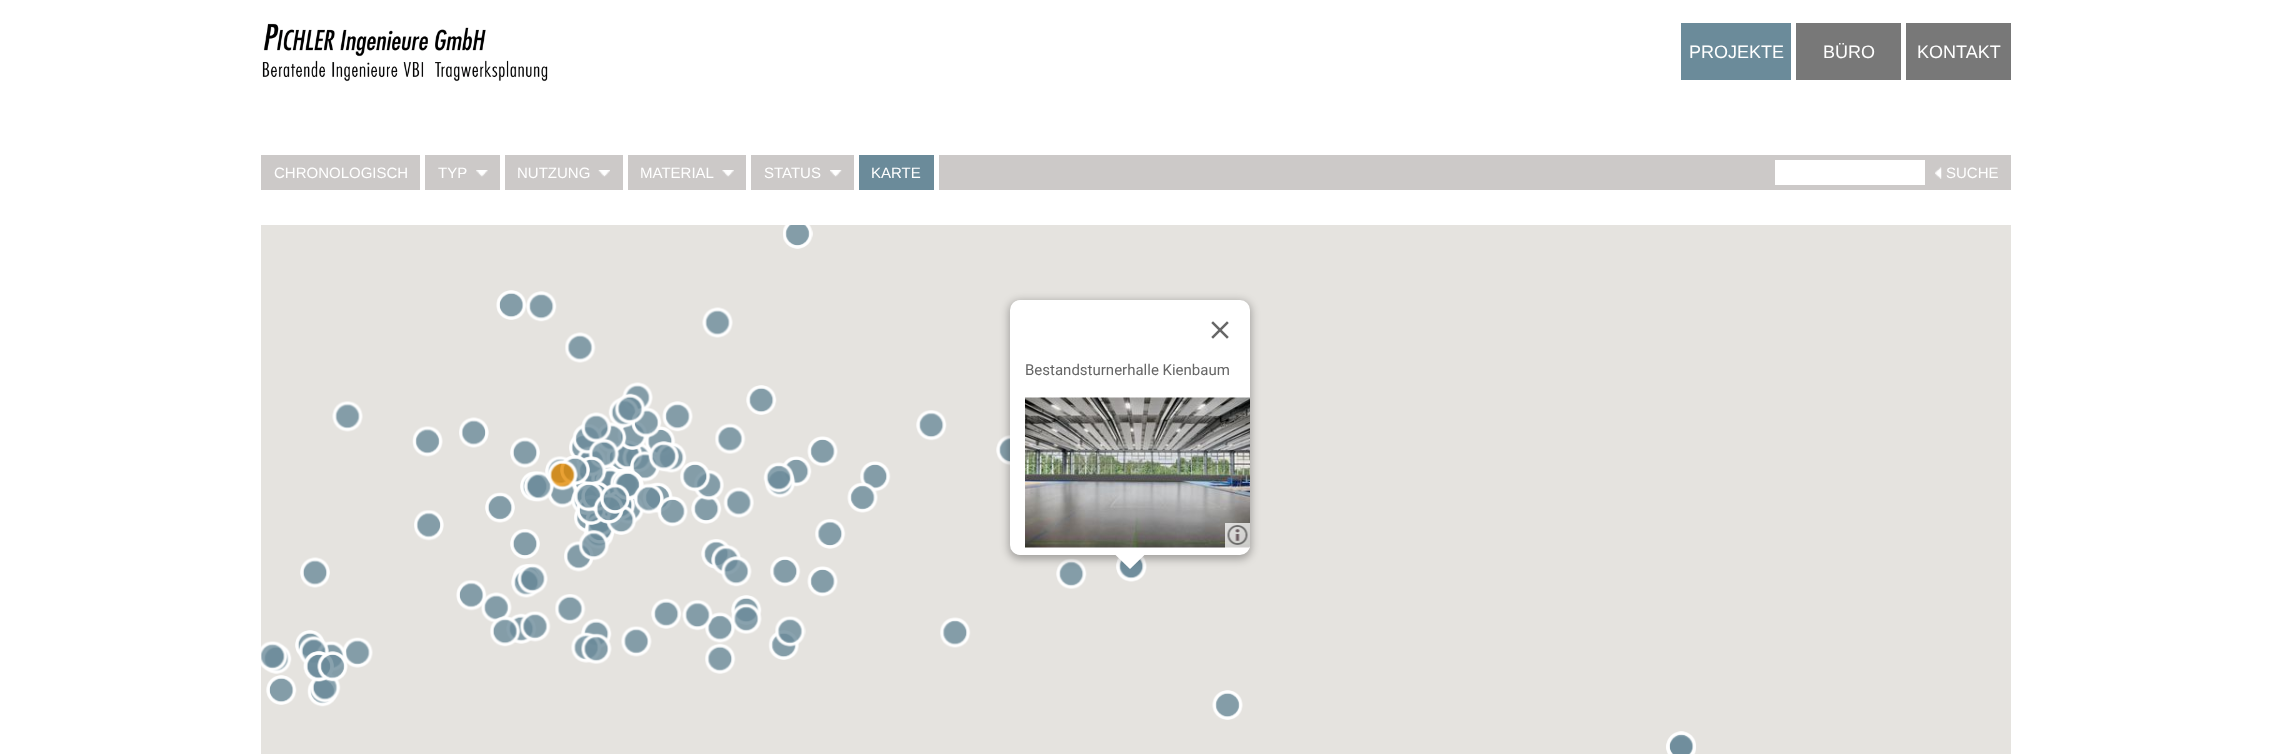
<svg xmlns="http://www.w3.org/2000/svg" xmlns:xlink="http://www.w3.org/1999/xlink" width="2272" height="754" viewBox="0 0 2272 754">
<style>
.cls-1{font:18px Liberation Sans;fill:#ffffff}
.cls-2{font:15px Liberation Sans;fill:#ffffff}
.cls-3{font:15px Roboto;fill:#666666}
</style>
<rect width="100%" height="100%" fill="#ffffff"/>
<image xlink:href="image0.png" x="262" y="23" width="286" height="59"/>
<rect fill="#787878" x="1796" y="23" width="105" height="57"/>
<rect fill="#6b8b9a" x="1681" y="23" width="110" height="57"/>
<rect fill="#ccc9c8" x="261" y="155" width="1750" height="35"/>
<rect fill="#ffffff" x="420" y="155" width="5" height="35"/>
<rect fill="#ffffff" x="500" y="155" width="5" height="35"/>
<image xlink:href="image1.png" x="476" y="170" width="12" height="7"/>
<rect fill="#ffffff" x="623" y="155" width="5" height="35"/>
<image xlink:href="image2.png" x="598" y="170" width="12" height="7"/>
<rect fill="#ffffff" x="746" y="155" width="5" height="35"/>
<image xlink:href="image3.png" x="722" y="170" width="12" height="7"/>
<rect fill="#ffffff" x="854" y="155" width="5" height="35"/>
<image xlink:href="image4.png" x="830" y="170" width="12" height="7"/>
<rect fill="#ffffff" x="934" y="155" width="5" height="35"/>
<rect fill="#6b8b9a" x="859" y="155" width="75" height="35"/>
<rect fill="#ffffff" x="1775" y="160" width="150" height="25"/>
<image xlink:href="image5.png" x="1935" y="167" width="7" height="12"/>
<rect fill="#787878" x="1906" y="23" width="105" height="57"/>
<rect fill="#e5e3df" x="261" y="225" width="1750" height="529"/>
<image xlink:href="image6.png" x="783" y="225" width="30" height="24"/>
<image xlink:href="image7.png" x="496" y="290" width="31" height="30"/>
<image xlink:href="image8.png" x="526" y="291" width="31" height="31"/>
<image xlink:href="image9.png" x="702" y="307" width="31" height="31"/>
<image xlink:href="image10.png" x="565" y="332" width="31" height="31"/>
<image xlink:href="image11.png" x="622" y="382" width="31" height="31"/>
<image xlink:href="image12.png" x="746" y="385" width="31" height="30"/>
<image xlink:href="image35.png" x="606" y="442" width="31" height="31"/>
<image xlink:href="image44.png" x="572" y="467" width="31" height="31"/>
<image xlink:href="image45.png" x="591" y="464" width="31" height="30"/>
<image xlink:href="image61.png" x="575" y="483" width="31" height="31"/>
<image xlink:href="image49.png" x="595" y="467" width="30" height="31"/>
<image xlink:href="image75.png" x="574" y="502" width="30" height="31"/>
<image xlink:href="image76.png" x="593" y="497" width="31" height="31"/>
<image xlink:href="image52.png" x="609" y="468" width="32" height="31"/>
<image xlink:href="image36.png" x="622" y="442" width="31" height="31"/>
<image xlink:href="image25.png" x="645" y="426" width="31" height="31"/>
<image xlink:href="image30.png" x="612" y="440" width="32" height="29"/>
<image xlink:href="image24.png" x="617" y="420" width="31" height="30"/>
<image xlink:href="image17.png" x="608" y="397" width="31" height="31"/>
<image xlink:href="image18.png" x="631" y="407" width="31" height="31"/>
<image xlink:href="image28.png" x="569" y="432" width="30" height="31"/>
<image xlink:href="image34.png" x="576" y="446" width="31" height="31"/>
<image xlink:href="image23.png" x="596" y="422" width="31" height="31"/>
<image xlink:href="image13.png" x="614" y="393" width="32" height="31"/>
<image xlink:href="image14.png" x="332" y="401" width="31" height="31"/>
<image xlink:href="image15.png" x="459" y="417" width="30" height="31"/>
<image xlink:href="image22.png" x="572" y="423" width="32" height="32"/>
<image xlink:href="image29.png" x="588" y="438" width="32" height="31"/>
<image xlink:href="image16.png" x="581" y="412" width="31" height="31"/>
<image xlink:href="image19.png" x="662" y="401" width="31" height="31"/>
<image xlink:href="image20.png" x="916" y="410" width="31" height="31"/>
<image xlink:href="image21.png" x="412" y="426" width="31" height="31"/>
<image xlink:href="image26.png" x="715" y="423" width="31" height="31"/>
<image xlink:href="image27.png" x="510" y="437" width="30" height="31"/>
<image xlink:href="image37.png" x="656" y="442" width="31" height="31"/>
<image xlink:href="image39.png" x="630" y="451" width="30" height="31"/>
<image xlink:href="image31.png" x="648" y="441" width="31" height="31"/>
<image xlink:href="image42.png" x="781" y="456" width="31" height="31"/>
<image xlink:href="image32.png" x="807" y="436" width="31" height="31"/>
<image xlink:href="image33.png" x="996" y="435" width="14" height="31"/>
<image xlink:href="image51.png" x="520" y="471" width="30" height="31"/>
<image xlink:href="image56.png" x="547" y="477" width="31" height="31"/>
<image xlink:href="image54.png" x="523" y="471" width="31" height="31"/>
<image xlink:href="image82.png" x="583" y="518" width="31" height="31"/>
<image xlink:href="image78.png" x="585" y="506" width="30" height="31"/>
<image xlink:href="image66.png" x="598" y="484" width="31" height="32"/>
<image xlink:href="image44.png" x="642" y="482" width="31" height="31"/>
<image xlink:href="image80.png" x="585" y="513" width="31" height="31"/>
<image xlink:href="image72.png" x="613" y="493" width="31" height="31"/>
<image xlink:href="image69.png" x="604" y="490" width="32" height="30"/>
<image xlink:href="image62.png" x="578" y="483" width="29" height="32"/>
<image xlink:href="image41.png" x="576" y="456" width="31" height="29"/>
<image xlink:href="image65.png" x="571" y="485" width="31" height="30"/>
<image xlink:href="image70.png" x="576" y="495" width="31" height="30"/>
<image xlink:href="image55.png" x="614" y="471" width="30" height="29"/>
<image xlink:href="image58.png" x="612" y="472" width="29" height="28"/>
<image xlink:href="image73.png" x="657" y="496" width="31" height="31"/>
<image xlink:href="image64.png" x="634" y="483" width="30" height="31"/>
<image xlink:href="image79.png" x="606" y="505" width="31" height="30"/>
<image xlink:href="image59.png" x="581" y="481" width="31" height="31"/>
<image xlink:href="image57.png" x="574" y="481" width="30" height="31"/>
<image xlink:href="image40.png" x="545" y="456" width="30" height="31"/>
<image xlink:href="image38.png" x="560" y="455" width="30" height="30"/>
<image xlink:href="image43.png" x="548" y="460" width="30" height="31"/>
<image xlink:href="image74.png" x="691" y="494" width="31" height="30"/>
<image xlink:href="image53.png" x="693" y="470" width="31" height="31"/>
<image xlink:href="image46.png" x="680" y="461" width="31" height="31"/>
<image xlink:href="image50.png" x="765" y="467" width="31" height="31"/>
<image xlink:href="image47.png" x="763" y="462" width="31" height="31"/>
<image xlink:href="image48.png" x="860" y="461" width="31" height="31"/>
<image xlink:href="image60.png" x="847" y="482" width="31" height="31"/>
<image xlink:href="image71.png" x="593" y="493" width="31" height="31"/>
<image xlink:href="image63.png" x="600" y="483" width="30" height="31"/>
<image xlink:href="image67.png" x="723" y="487" width="31" height="31"/>
<image xlink:href="image68.png" x="485" y="492" width="30" height="31"/>
<image xlink:href="image77.png" x="414" y="510" width="30" height="31"/>
<image xlink:href="image81.png" x="510" y="529" width="30" height="30"/>
<image xlink:href="image83.png" x="815" y="519" width="31" height="30"/>
<image xlink:href="image86.png" x="564" y="541" width="30" height="31"/>
<image xlink:href="image84.png" x="578" y="529" width="31" height="32"/>
<image xlink:href="image85.png" x="701" y="539" width="31" height="30"/>
<image xlink:href="image87.png" x="711" y="545" width="31" height="31"/>
<image xlink:href="image88.png" x="721" y="556" width="31" height="31"/>
<image xlink:href="image89.png" x="770" y="556" width="31" height="31"/>
<image xlink:href="image90.png" x="1116" y="556" width="31" height="26"/>
<image xlink:href="image91.png" x="300" y="557" width="30" height="31"/>
<image xlink:href="image95.png" x="512" y="564" width="31" height="30"/>
<image xlink:href="image99.png" x="511" y="567" width="30" height="31"/>
<image xlink:href="image92.png" x="517" y="563" width="31" height="31"/>
<image xlink:href="image93.png" x="1056" y="558" width="31" height="31"/>
<image xlink:href="image94.png" x="1116" y="556" width="31" height="26"/>
<image xlink:href="image96.png" x="807" y="566" width="31" height="31"/>
<image xlink:href="image108.png" x="506" y="613" width="31" height="31"/>
<image xlink:href="image98.png" x="481" y="592" width="31" height="31"/>
<image xlink:href="image97.png" x="456" y="580" width="31" height="31"/>
<image xlink:href="image109.png" x="581" y="618" width="31" height="31"/>
<image xlink:href="image100.png" x="555" y="594" width="31" height="30"/>
<image xlink:href="image101.png" x="651" y="598" width="31" height="31"/>
<image xlink:href="image12.png" x="731" y="595" width="31" height="30"/>
<image xlink:href="image104.png" x="705" y="612" width="31" height="31"/>
<image xlink:href="image102.png" x="682" y="600" width="31" height="31"/>
<image xlink:href="image103.png" x="519" y="611" width="32" height="31"/>
<image xlink:href="image105.png" x="731" y="603" width="31" height="31"/>
<image xlink:href="image106.png" x="295" y="630" width="30" height="30"/>
<image xlink:href="image107.png" x="490" y="616" width="31" height="31"/>
<image xlink:href="image110.png" x="621" y="626" width="31" height="31"/>
<image xlink:href="image114.png" x="768" y="630" width="31" height="30"/>
<image xlink:href="image111.png" x="775" y="616" width="31" height="31"/>
<image xlink:href="image112.png" x="940" y="617" width="31" height="31"/>
<image xlink:href="image113.png" x="571" y="632" width="31" height="31"/>
<image xlink:href="image120.png" x="261" y="643" width="31" height="31"/>
<image xlink:href="image115.png" x="261" y="641" width="27" height="30"/>
<image xlink:href="image118.png" x="342" y="637" width="31" height="31"/>
<image xlink:href="image117.png" x="316" y="641" width="31" height="31"/>
<image xlink:href="image116.png" x="299" y="636" width="30" height="31"/>
<image xlink:href="image119.png" x="581" y="633" width="31" height="31"/>
<image xlink:href="image127.png" x="307" y="676" width="31" height="31"/>
<image xlink:href="image126.png" x="310" y="672" width="31" height="31"/>
<image xlink:href="image121.png" x="303" y="651" width="31" height="31"/>
<image xlink:href="image122.png" x="705" y="643" width="31" height="31"/>
<image xlink:href="image123.png" x="303" y="651" width="31" height="31"/>
<image xlink:href="image124.png" x="317" y="651" width="31" height="31"/>
<image xlink:href="image125.png" x="266" y="675" width="31" height="30"/>
<image xlink:href="image128.png" x="1212" y="690" width="31" height="30"/>
<image xlink:href="image130.png" x="1666" y="733" width="30" height="21"/>
<image xlink:href="image129.png" x="1666" y="731" width="30" height="23"/>
<rect fill="#000000" fill-opacity="0.3" filter="blur(4.5px)" x="1009" y="301" width="242" height="258" rx="11"/>
<rect fill="#ffffff" x="1010" y="300" width="240" height="255" rx="10"/>
<image xlink:href="image131.png" x="1211" y="321" width="18" height="18"/>
<image xlink:href="image132.png" x="1025" y="397" width="225" height="151"/>
<rect fill="#ffffff" fill-opacity="0.75" x="1225" y="523" width="25" height="25"/>
<image xlink:href="image133.png" x="1227" y="525" width="21" height="20"/>
<path fill="#ffffff" d="M1115 554V554.5L1130 569L1145.5 554Z"/>
<text class="cls-1" x="1823" y="58">BÜRO</text>
<text class="cls-1" x="1689" y="58">PROJEKTE</text>
<text class="cls-2" x="274" y="178">CHRONOLOGISCH</text>
<text class="cls-2" x="438" y="178">TYP</text>
<text class="cls-2" x="517" y="178">NUTZUNG</text>
<text class="cls-2" x="640" y="178">MATERIAL</text>
<text class="cls-2" x="764" y="178">STATUS</text>
<text class="cls-2" x="871" y="178">KARTE</text>
<text class="cls-2" x="1946" y="178">SUCHE</text>
<text class="cls-1" x="1917" y="58">KONTAKT</text>
<text class="cls-3" x="1025" y="375">Bestandsturnerhalle Kienbaum</text>
</svg>
